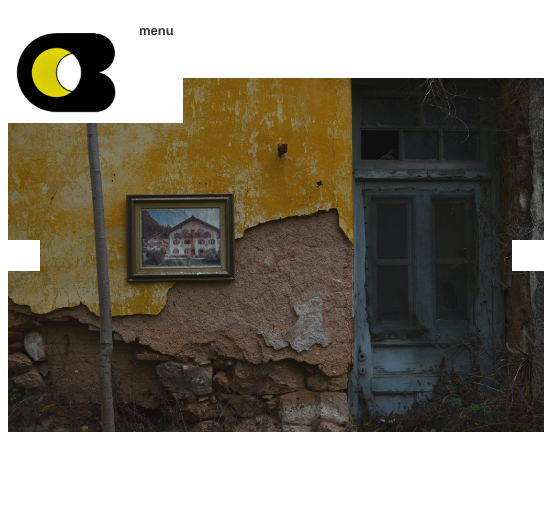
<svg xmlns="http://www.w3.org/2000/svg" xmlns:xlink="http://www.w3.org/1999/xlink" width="552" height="511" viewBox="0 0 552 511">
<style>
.cls-1{font:bold 13px Liberation Sans;fill:#3b3a37}
</style>
<rect width="100%" height="100%" fill="#ffffff"/>
<image xlink:href="image1.png" x="8" y="78" width="536" height="354"/>
<rect fill="#ffffff" x="8" y="78" width="175" height="45"/>
<image xlink:href="image0.png" x="16" y="33" width="100" height="80"/>
<rect fill="#ffffff" x="8" y="240" width="32" height="31"/>
<rect fill="#ffffff" x="512" y="240" width="32" height="31"/>
<text class="cls-1" x="139" y="35">menu</text>
</svg>
